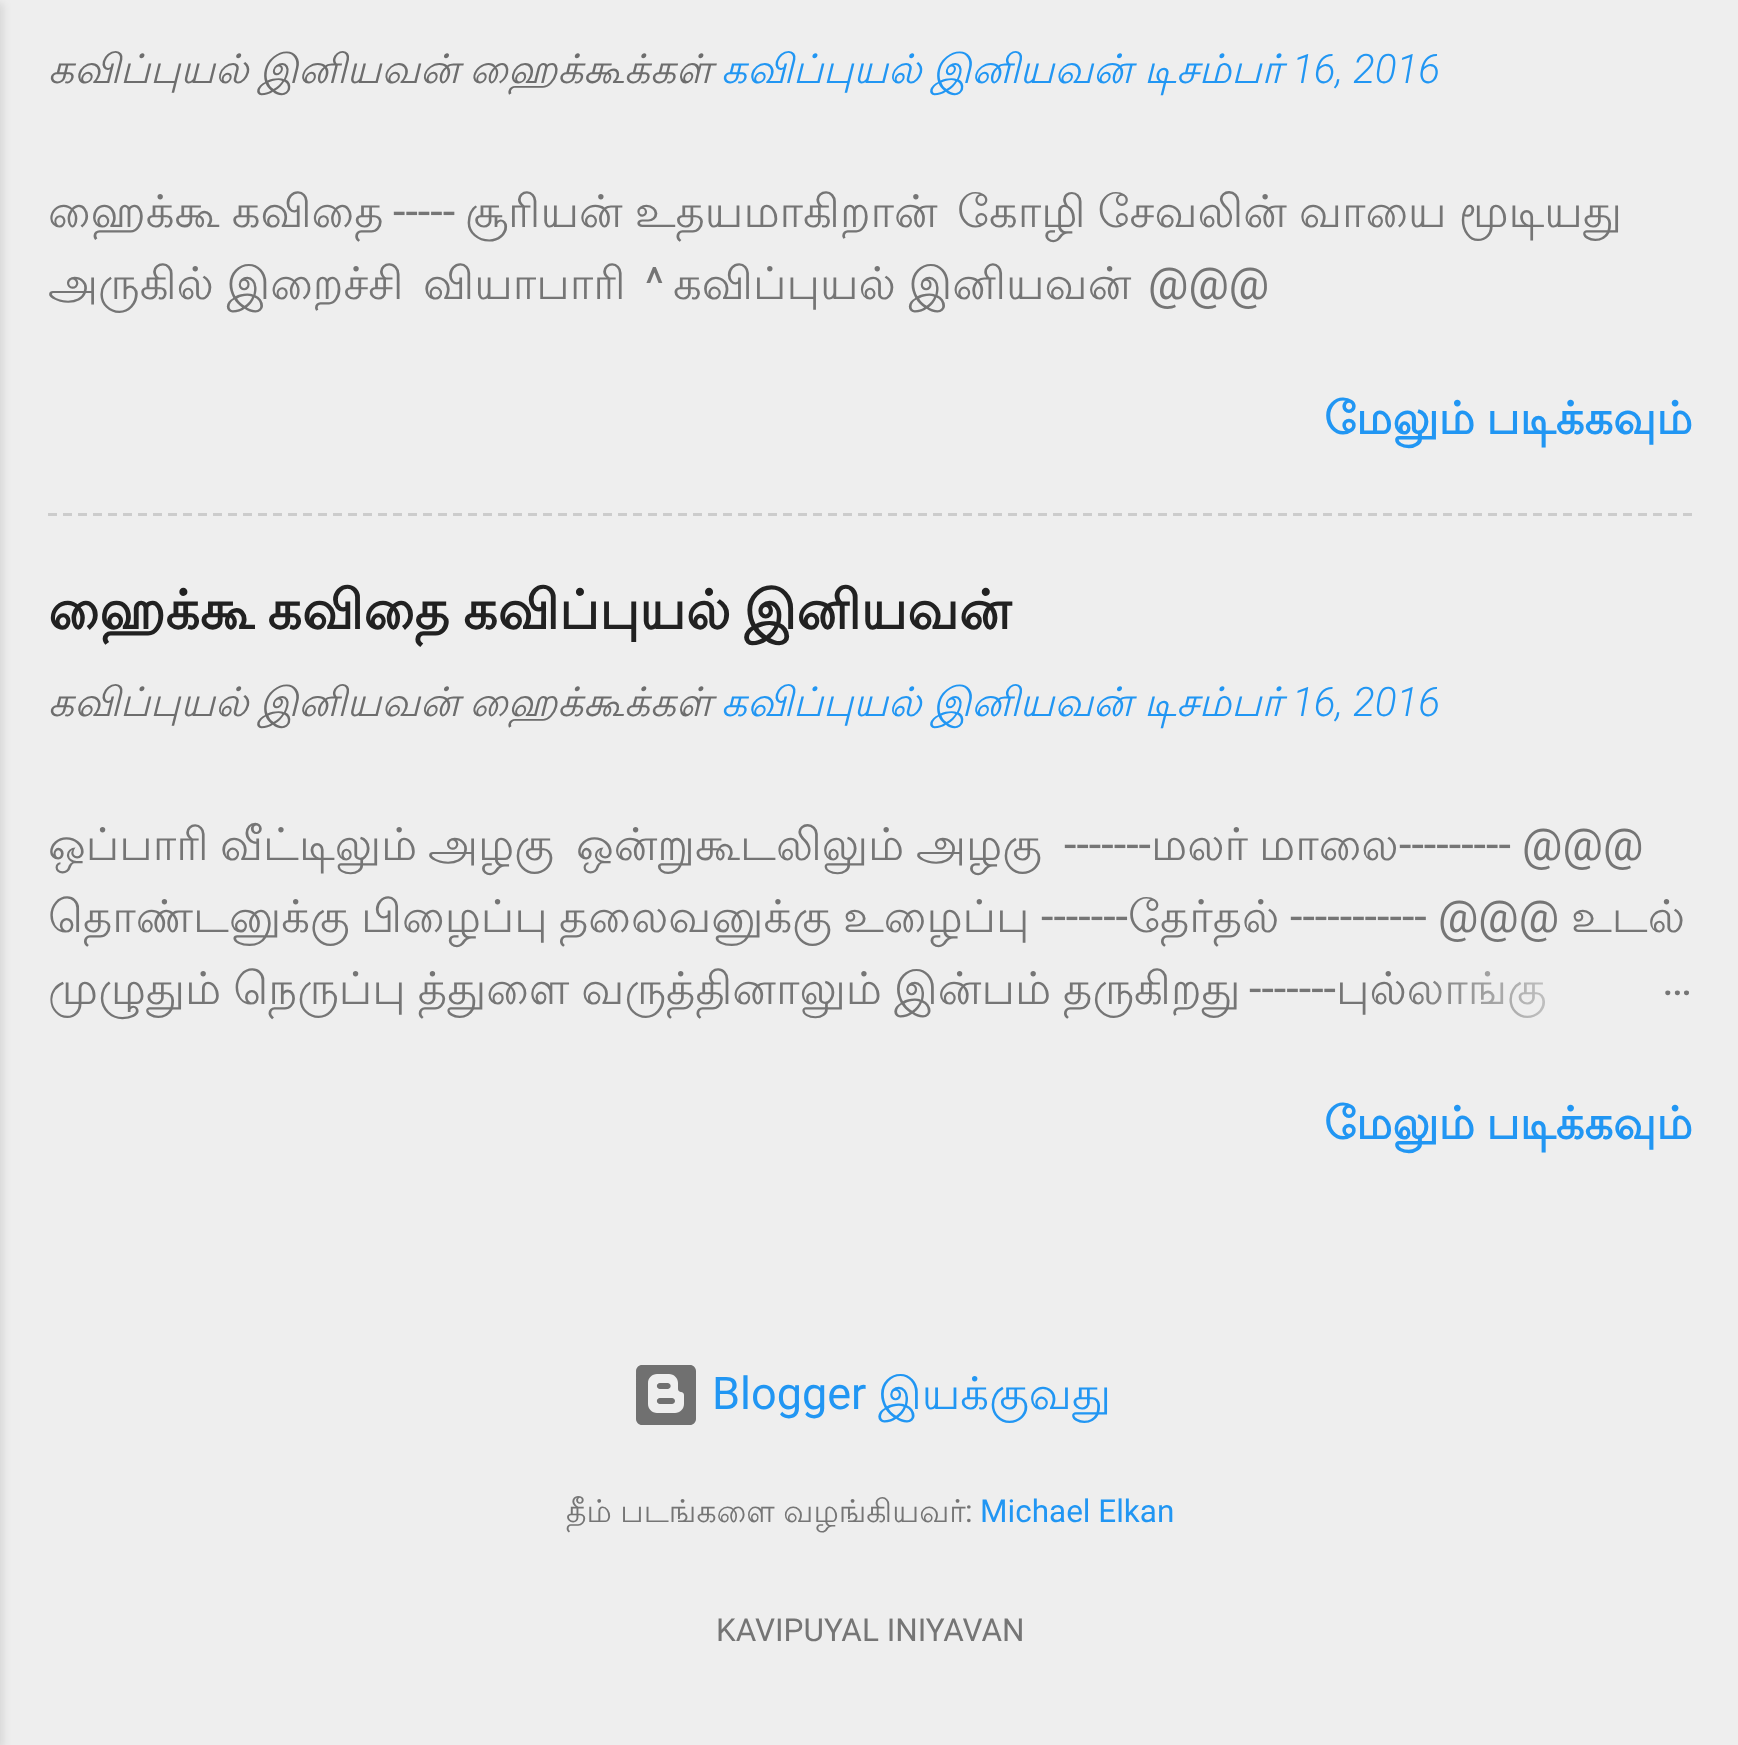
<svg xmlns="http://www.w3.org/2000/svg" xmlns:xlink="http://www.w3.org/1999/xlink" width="1738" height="1745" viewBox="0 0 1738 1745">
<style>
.cls-1{font:italic 40.5px Lohit Tamil;fill:#6d6d6d}
.cls-2{font:italic 40.5px Lohit Tamil;fill:#2196f3}
.cls-3{font:italic 300 40.5px Roboto;fill:#2196f3}
.cls-4{font:45px Lohit Tamil;fill:#757575}
.cls-5{font:45px Roboto;fill:#757575}
.cls-6{font:bold 45px Lohit Tamil;fill:#2196f3}
.cls-7{font:bold 54px Lohit Tamil;fill:#212121}
.cls-8{font:45px Roboto;fill:#2196f3}
.cls-9{font:45px Lohit Tamil;fill:#2196f3}
.cls-10{font:31.5px Lohit Tamil;fill:#757575}
.cls-11{font:31.5px Roboto;fill:#757575}
.cls-12{font:31.5px Roboto;fill:#2196f3}
</style>
<defs>
<linearGradient id="g1" gradientUnits="userSpaceOnUse" x1="1692" y1="990" x2="1404" y2="990"><stop offset="0" stop-color="#eeeeee"/><stop offset="0.2" stop-color="#eeeeee"/><stop offset="1" stop-color="#eeeeee" stop-opacity="0"/></linearGradient>
</defs>
<rect width="100%" height="100%" fill="#eeeeee"/>
<rect fill="#000000" fill-opacity="0.1" filter="blur(4.5px)" x="-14" y="3" width="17" height="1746"/>
<path fill="none" stroke="#cccccc" stroke-width="3" stroke-dasharray="9 6" d="M48 514.5H1692"/>
<image xlink:href="image0.png" x="636" y="1365" width="60" height="60"/>
<text class="cls-1" x="48" y="83" word-spacing="-2">கவிப்புயல் இனியவன் ஹைக்கூக்கள்</text>
<text class="cls-2" x="721" y="83" word-spacing="-2">கவிப்புயல் இனியவன்</text>
<text class="cls-2" x="1144" y="83">டிசம்பர்</text>
<text class="cls-3" x="1292" y="83">16, 2016</text>
<text class="cls-4" x="48" y="227" word-spacing="-1.5">ஹைக்கூ கவிதை</text>
<text class="cls-5" x="393" y="227">-----</text>
<text class="cls-4" x="465" y="227" word-spacing="-1.5">சூரியன் உதயமாகிறான்</text>
<text class="cls-4" x="957" y="227" word-spacing="-1.5">கோழி சேவலின் வாயை மூடியது</text>
<text class="cls-4" x="48" y="299" word-spacing="-1">அருகில் இறைச்சி</text>
<text class="cls-4" x="423" y="299">வியாபாரி</text>
<text class="cls-5" x="645" y="299">^</text>
<text class="cls-4" x="673" y="299" word-spacing="-1">கவிப்புயல் இனியவன்</text>
<text class="cls-5" x="1148" y="299">@@@</text>
<text class="cls-6" x="1324" y="434" word-spacing="-2">மேலும் படிக்கவும்</text>
<text class="cls-7" x="48" y="629" word-spacing="-3">ஹைக்கூ கவிதை</text>
<text class="cls-7" x="463" y="629" word-spacing="-3">கவிப்புயல் இனியவன்</text>
<text class="cls-1" x="48" y="716" word-spacing="-2">கவிப்புயல் இனியவன் ஹைக்கூக்கள்</text>
<text class="cls-2" x="721" y="716" word-spacing="-2">கவிப்புயல் இனியவன்</text>
<text class="cls-2" x="1144" y="716">டிசம்பர்</text>
<text class="cls-3" x="1292" y="716">16, 2016</text>
<text class="cls-4" x="48" y="860">ஒப்பாரி</text>
<text class="cls-4" x="220" y="860">வீட்டிலும்</text>
<text class="cls-4" x="428" y="860">அழகு</text>
<text class="cls-4" x="576" y="860">ஒன்றுகூடலிலும்</text>
<text class="cls-4" x="916" y="860">அழகு</text>
<text class="cls-5" x="1064" y="860">-------</text>
<text class="cls-4" x="1151" y="860">மலர்</text>
<text class="cls-4" x="1259" y="860">மாலை</text>
<text class="cls-5" x="1399" y="860">--------- @@@</text>
<text class="cls-4" x="48" y="932">தொண்டனுக்கு</text>
<text class="cls-4" x="361" y="932">பிழைப்பு</text>
<text class="cls-4" x="559" y="932">தலைவனுக்கு</text>
<text class="cls-4" x="843" y="932">உழைப்பு</text>
<text class="cls-5" x="1041" y="932">-------</text>
<text class="cls-4" x="1128" y="932">தேர்தல்</text>
<text class="cls-5" x="1290" y="932">----------- @@@</text>
<text class="cls-4" x="1571" y="932">உடல்</text>
<text class="cls-4" x="48" y="1004" word-spacing="-1.5">முழுதும் நெருப்பு த்துளை வருத்தினாலும் இன்பம் தருகிறது</text>
<text class="cls-5" x="1249" y="1004">-------</text>
<text class="cls-4" x="1336" y="1004">புல்லாங்கு</text>
<rect fill="url(#g1)" x="1410" y="971" width="136" height="48"/>
<text class="cls-5" x="1662" y="995">…</text>
<text class="cls-6" x="1324" y="1139" word-spacing="-2">மேலும் படிக்கவும்</text>
<text class="cls-8" x="712" y="1409">Blogger</text>
<text class="cls-9" x="878" y="1409">இயக்குவது</text>
<text class="cls-10" x="566" y="1522" word-spacing="-1">தீம் படங்களை வழங்கியவர்</text>
<text class="cls-11" x="965" y="1522">:</text>
<text class="cls-12" x="980" y="1522">Michael Elkan</text>
<text class="cls-11" x="716" y="1641">KAVIPUYAL INIYAVAN</text>
</svg>
